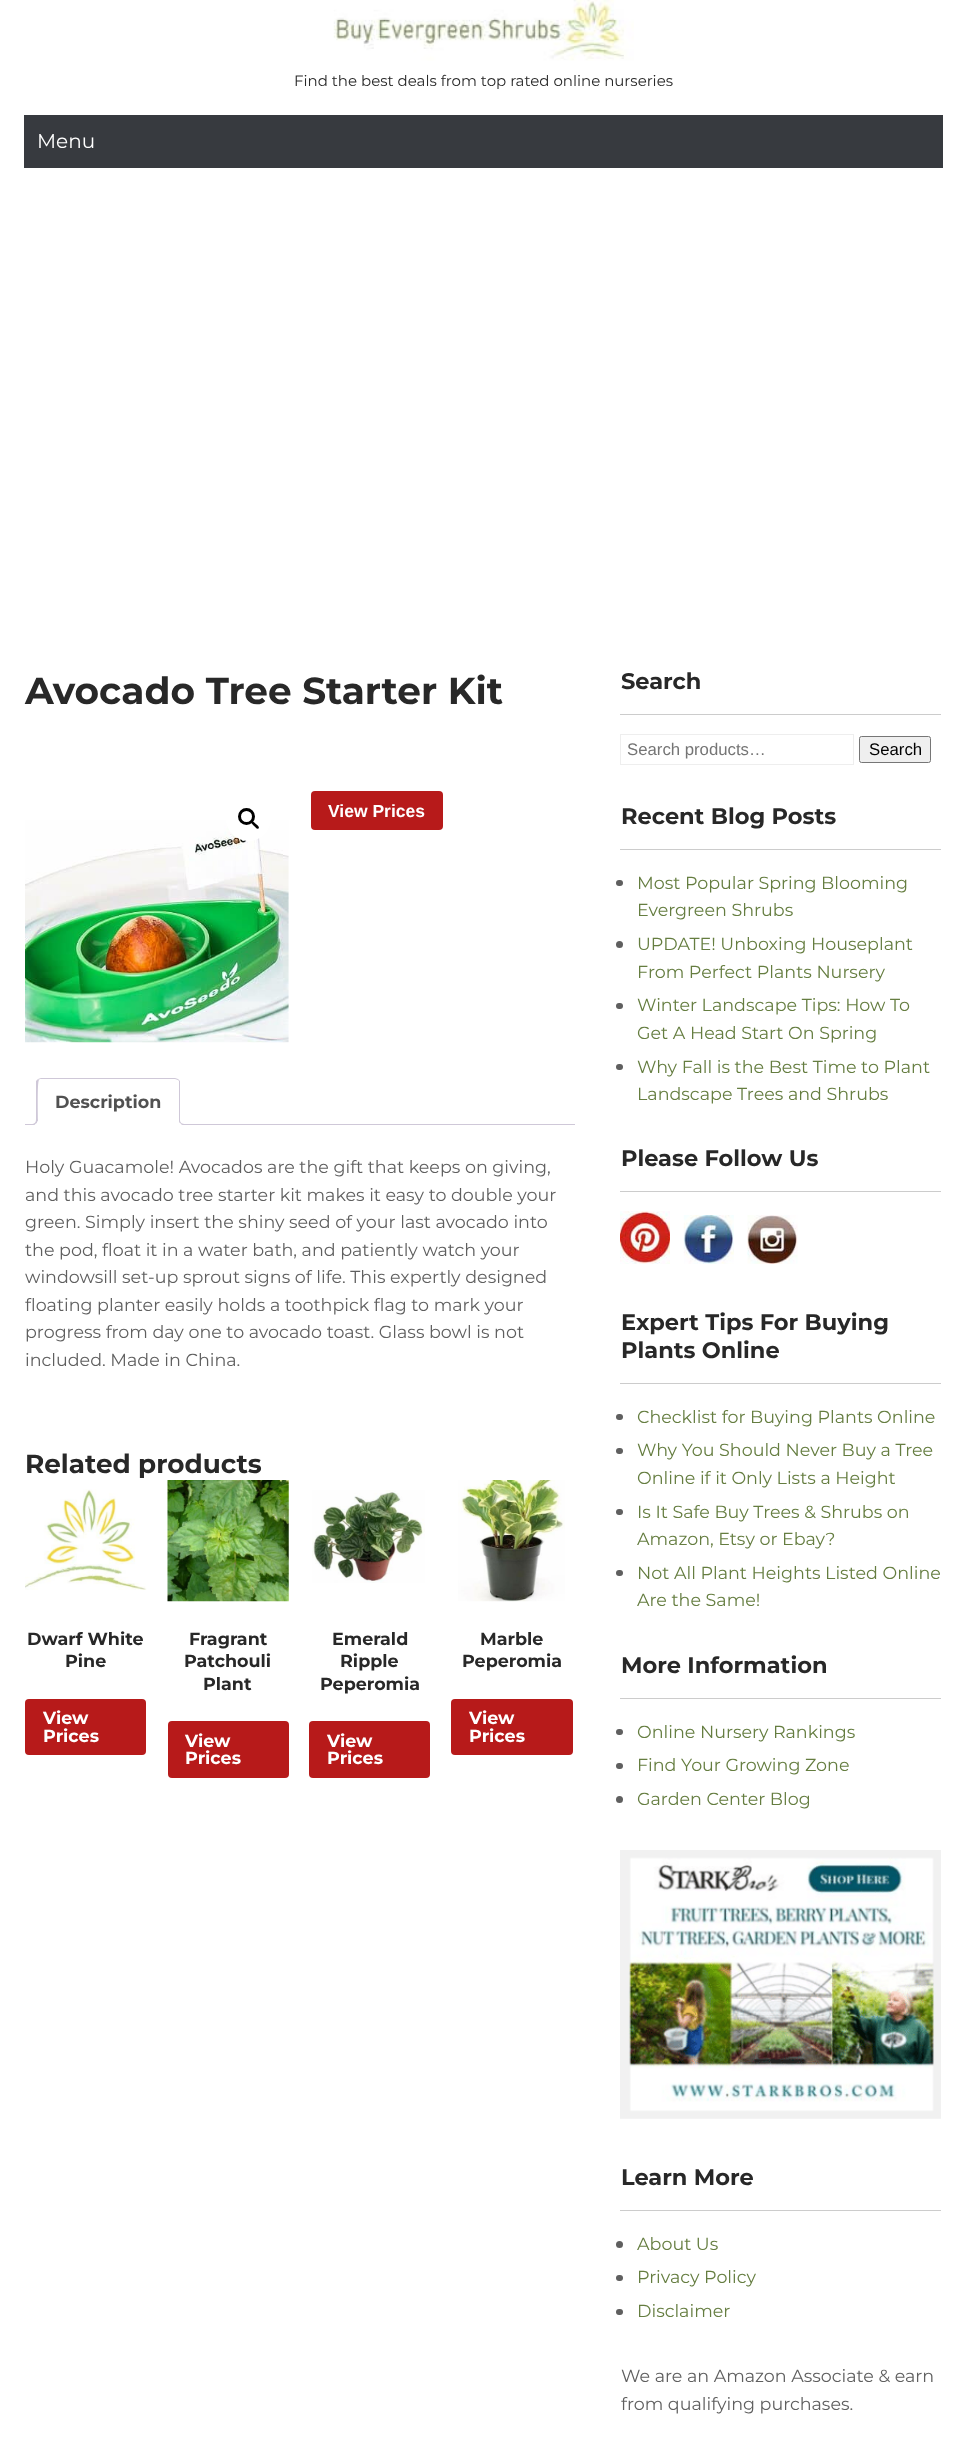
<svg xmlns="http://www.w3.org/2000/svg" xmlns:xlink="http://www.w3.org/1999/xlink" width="966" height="2446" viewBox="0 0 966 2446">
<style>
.cls-1{font:15px Montserrat;fill:#282828}
.cls-2{font:20px Montserrat;fill:#ffffff}
.cls-3{font:bold 37.5px Montserrat;fill:#282828}
.cls-4{font:bold 17.5px Liberation Sans;fill:#ffffff}
.cls-5{font:bold 17.5px Montserrat;fill:#515151}
.cls-6{font:17.5px Montserrat;fill:#5f5f5f}
.cls-7{font:bold 26.25px Montserrat;fill:#282828}
.cls-8{font:bold 17.5px Montserrat;fill:#282828}
.cls-9{font:bold 17.5px Montserrat;fill:#ffffff}
.cls-10{font:bold 22.5px Montserrat;fill:#282828}
.cls-11{font:16.75px Liberation Sans;fill:#757575}
.cls-12{font:16.75px Liberation Sans;fill:#000000}
.cls-13{font:17.5px Montserrat;fill:#657d40}
</style>
<defs>
<clipPath id="clip1"><rect x="25" y="1078" width="550" height="47"/></clipPath>
</defs>
<rect width="100%" height="100%" fill="#ffffff"/>
<image xlink:href="image0.png" x="333" y="0" width="301" height="61"/>
<rect fill="#373a3f" x="24" y="115" width="919" height="53"/>
<image xlink:href="image1.png" x="25" y="820" width="264" height="223"/>
<circle fill="#ffffff" cx="248.5" cy="818.5" r="22.5"/>
<circle fill="none" stroke="#000000" stroke-width="3" cx="246.5" cy="816.5" r="7"/>
<path fill="#000000" d="M251.5 821.5C253 820 255 823.5 256 824C257 825 260 827 258.5 828.5C257 830 255 826.5 254 826C253.5 825 250 823 251.5 821.5Z"/>
<rect fill="#b71a1a" x="311" y="791" width="132" height="39" rx="4"/>
<rect fill="#cfc8d8" x="25" y="1124" width="550" height="1"/>
<path fill="#ffffff" d="M41 1078H175C178 1078 180 1080 180 1083V1125H36V1083C36 1080 38 1078 41 1078Z"/>
<path fill="#cfc8d8" d="M41 1078L38 1079L39 1080C39 1079 40 1079 41 1079H175L178 1080V1079L175 1078Z"/>
<path fill="#cfc8d8" d="M180 1125V1081L178 1079V1080L179 1081V1124Z"/>
<path fill="#ffffff" d="M180 1125L179 1124H38V1123L36 1125Z"/>
<path fill="#cfc8d8" d="M36 1125L38 1123C38 1118 37 1082 39 1080L38 1079L36 1081Z"/>
<g clip-path="url(#clip1)">
<path fill="#ffffff" d="M34 1125V1128C39 1128 40 1125.5 40 1121H37.5C37 1123 35.5 1124 34 1125Z"/>
</g>
<path fill="#cfc8d8" fill-rule="evenodd" d="M31 1119H37.5C37.5 1123 35.5 1125 31 1125ZM31 1119H36C36 1122.5 35 1124 31 1124Z"/>
<g clip-path="url(#clip1)">
<path fill="#ffffff" d="M176 1121C176 1126.5 177.5 1128 183 1128V1125C181 1124.5 179.5 1123 179 1121Z"/>
</g>
<path fill="#cfc8d8" fill-rule="evenodd" d="M179 1119H185V1125C182 1125 179 1123.5 179 1120ZM180 1119H185V1124C182.5 1124 180 1123 180 1120Z"/>
<image xlink:href="image2.png" x="25" y="1489" width="122" height="101"/>
<rect fill="#b71a1a" x="25" y="1699" width="121" height="56" rx="4"/>
<image xlink:href="image3.png" x="167" y="1480" width="122" height="122"/>
<rect fill="#b71a1a" x="168" y="1721" width="121" height="57" rx="4"/>
<image xlink:href="image4.png" x="312" y="1490" width="113" height="93"/>
<rect fill="#b71a1a" x="309" y="1721" width="121" height="57" rx="4"/>
<image xlink:href="image5.png" x="458" y="1480" width="107" height="122"/>
<rect fill="#b71a1a" x="451" y="1699" width="122" height="56" rx="4"/>
<rect fill="#cccccc" x="620" y="714" width="321" height="1"/>
<rect fill="none" stroke="#eeeeee" x="620.5" y="734.5" width="233" height="30"/>
<rect fill="#efefef" stroke="#767676" x="859.5" y="736.5" width="71" height="26" rx="2"/>
<rect fill="#cccccc" x="620" y="849" width="321" height="1"/>
<rect fill="#5f5f5f" x="616" y="880" width="7" height="6" rx="3"/>
<circle fill="#5f5f5f" cx="619.5" cy="944.5" r="3.5"/>
<rect fill="#5f5f5f" x="616" y="1003" width="7" height="6" rx="3"/>
<rect fill="#5f5f5f" x="616" y="1064" width="7" height="6" rx="3"/>
<rect fill="#cccccc" x="620" y="1191" width="321" height="1"/>
<image xlink:href="image6.png" x="620" y="1211" width="50" height="53"/>
<image xlink:href="image7.png" x="683" y="1215" width="51" height="49"/>
<image xlink:href="image8.png" x="747" y="1215" width="51" height="49"/>
<rect fill="#cccccc" x="620" y="1383" width="321" height="1"/>
<rect fill="#5f5f5f" x="616" y="1414" width="7" height="6" rx="3"/>
<rect fill="#5f5f5f" x="616" y="1448" width="7" height="6" rx="3"/>
<rect fill="#5f5f5f" x="616" y="1509" width="7" height="6" rx="3"/>
<rect fill="#5f5f5f" x="616" y="1570" width="7" height="6" rx="3"/>
<rect fill="#cccccc" x="620" y="1698" width="321" height="1"/>
<rect fill="#5f5f5f" x="616" y="1729" width="7" height="6" rx="3"/>
<rect fill="#5f5f5f" x="616" y="1763" width="7" height="6" rx="3"/>
<circle fill="#5f5f5f" cx="619.5" cy="1799.5" r="3.5"/>
<image xlink:href="image9.png" x="620" y="1850" width="321" height="269"/>
<rect fill="#cccccc" x="620" y="2210" width="321" height="1"/>
<circle fill="#5f5f5f" cx="619.5" cy="2244.5" r="3.5"/>
<rect fill="#5f5f5f" x="616" y="2275" width="7" height="6" rx="3"/>
<rect fill="#5f5f5f" x="616" y="2309" width="7" height="6" rx="3"/>
<text class="cls-1" x="294" y="86">Find the best deals from top rated online nurseries</text>
<text class="cls-2" x="37" y="148">Menu</text>
<text class="cls-3" x="25" y="704">Avocado Tree Starter Kit</text>
<text class="cls-4" x="328" y="817">View Prices</text>
<text class="cls-5" x="55" y="1108">Description</text>
<text class="cls-6"><tspan x="25" y="1173">Holy Guacamole! Avocados are the gift that keeps on giving,</tspan><tspan x="25" y="1201">and this avocado tree starter kit makes it easy to double your</tspan><tspan x="25" y="1228">green. Simply insert the shiny seed of your last avocado into</tspan><tspan x="25" y="1256">the pod, float it in a water bath, and patiently watch your</tspan><tspan x="25" y="1283">windowsill set-up sprout signs of life. This expertly designed</tspan><tspan x="25" y="1311">floating planter easily holds a toothpick flag to mark your</tspan><tspan x="25" y="1338">progress from day one to avocado toast. Glass bowl is not</tspan><tspan x="25" y="1366">included. Made in China.</tspan></text>
<text class="cls-7" x="25" y="1473">Related products</text>
<text class="cls-8" x="27" y="1645">Dwarf White</text>
<text class="cls-8" x="65" y="1667">Pine</text>
<text class="cls-9"><tspan x="43" y="1724">View</tspan><tspan x="43" y="1742">Prices</tspan></text>
<text class="cls-8" x="189" y="1645">Fragrant</text>
<text class="cls-8" x="184" y="1667">Patchouli</text>
<text class="cls-8" x="203" y="1690">Plant</text>
<text class="cls-9"><tspan x="185" y="1747">View</tspan><tspan x="185" y="1764">Prices</tspan></text>
<text class="cls-8" x="332" y="1645">Emerald</text>
<text class="cls-8" x="340" y="1667">Ripple</text>
<text class="cls-8" x="320" y="1690">Peperomia</text>
<text class="cls-9"><tspan x="327" y="1747">View</tspan><tspan x="327" y="1764">Prices</tspan></text>
<text class="cls-8" x="480" y="1645">Marble</text>
<text class="cls-8" x="462" y="1667">Peperomia</text>
<text class="cls-9"><tspan x="469" y="1724">View</tspan><tspan x="469" y="1742">Prices</tspan></text>
<text class="cls-10" x="621" y="689">Search</text>
<text class="cls-11" x="627" y="755">Search products…</text>
<text class="cls-12" x="869" y="755">Search</text>
<text class="cls-10" x="621" y="824">Recent Blog Posts</text>
<text class="cls-13"><tspan x="637" y="889">Most Popular Spring Blooming</tspan><tspan x="637" y="916">Evergreen Shrubs</tspan><tspan x="637" y="950">UPDATE! Unboxing Houseplant</tspan><tspan x="637" y="978">From Perfect Plants Nursery</tspan><tspan x="637" y="1011">Winter Landscape Tips: How To</tspan><tspan x="637" y="1039">Get A Head Start On Spring</tspan><tspan x="637" y="1073">Why Fall is the Best Time to Plant</tspan><tspan x="637" y="1100">Landscape Trees and Shrubs</tspan></text>
<text class="cls-10" x="621" y="1166">Please Follow Us</text>
<text class="cls-10"><tspan x="621" y="1330">Expert Tips For Buying</tspan><tspan x="621" y="1358">Plants Online</tspan></text>
<text class="cls-13"><tspan x="637" y="1423">Checklist for Buying Plants Online</tspan><tspan x="637" y="1456">Why You Should Never Buy a Tree</tspan><tspan x="637" y="1484">Online if it Only Lists a Height</tspan><tspan x="637" y="1518">Is It Safe Buy Trees &amp; Shrubs on</tspan><tspan x="637" y="1545">Amazon, Etsy or Ebay?</tspan><tspan x="637" y="1579">Not All Plant Heights Listed Online</tspan><tspan x="637" y="1606">Are the Same!</tspan></text>
<text class="cls-10" x="621" y="1673">More Information</text>
<text class="cls-13"><tspan x="637" y="1738">Online Nursery Rankings</tspan><tspan x="637" y="1771">Find Your Growing Zone</tspan><tspan x="637" y="1805">Garden Center Blog</tspan></text>
<text class="cls-10" x="621" y="2185">Learn More</text>
<text class="cls-13"><tspan x="637" y="2250">About Us</tspan><tspan x="637" y="2283">Privacy Policy</tspan><tspan x="637" y="2317">Disclaimer</tspan></text>
<text class="cls-6"><tspan x="621" y="2382">We are an Amazon Associate &amp; earn</tspan><tspan x="621" y="2410">from qualifying purchases.</tspan></text>
</svg>
